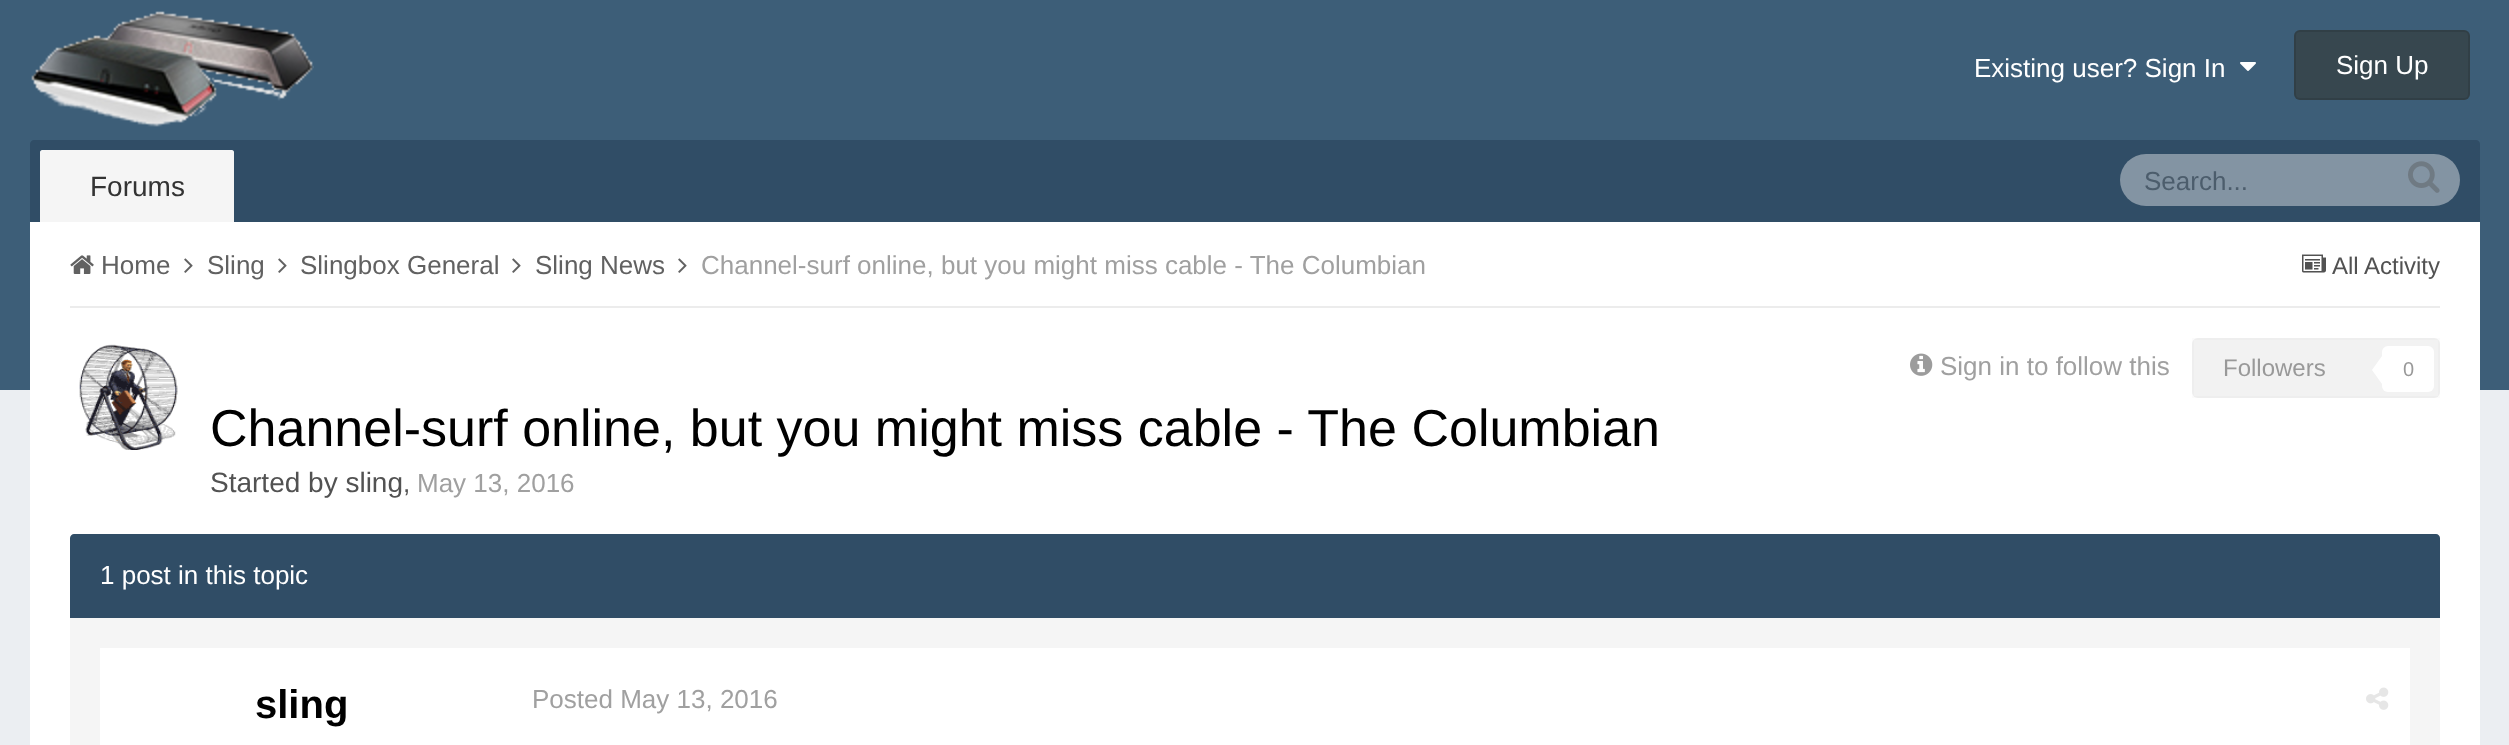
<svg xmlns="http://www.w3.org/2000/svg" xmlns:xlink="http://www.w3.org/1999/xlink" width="2509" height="745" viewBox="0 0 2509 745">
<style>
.cls-1{font:26px Liberation Sans;fill:#ffffff}
.cls-2{font:28px Liberation Sans;fill:#333333}
.cls-3{font:26px Liberation Sans;fill:#4c5d6c}
.cls-4{font:26px Liberation Sans;fill:#616161}
.cls-5{font:26px Liberation Sans;fill:#a0a0a0}
.cls-6{font:24px Liberation Sans;fill:#525252}
.cls-7{font:24px Liberation Sans;fill:#999999}
.cls-8{font:20px Liberation Sans;fill:#999999}
.cls-9{font:52px Liberation Sans;fill:#000000}
.cls-10{font:28px Liberation Sans;fill:#525252}
.cls-11{font:26px Liberation Sans;fill:#525252}
.cls-12{font:bold 40px Liberation Sans;fill:#000000}
</style>
<rect width="100%" height="100%" fill="#ebeef2"/>
<rect fill="#3d5e78" x="0" y="0" width="2509" height="390"/>
<image xlink:href="image0.png" x="31" y="11" width="283" height="116"/>
<image xlink:href="image1.png" x="2240" y="62" width="16" height="9"/>
<rect fill="#37474f" x="2294" y="30" width="176" height="70" rx="6"/>
<rect fill="none" stroke="#000000" stroke-opacity="0.1" stroke-width="2" x="2295" y="31" width="174" height="68" rx="5"/>
<path fill="#304d66" d="M34 140H2476C2478 140 2480 142 2480 144V222H30V144C30 142 32 140 34 140Z"/>
<path fill="#f5f5f5" d="M42 150H232C233 150 234 151 234 152V222H40V152C40 151 41 150 42 150Z"/>
<rect fill="#8394a3" x="2120" y="154" width="340" height="52" rx="26"/>
<image xlink:href="image2.png" x="2408" y="161" width="32" height="32"/>
<rect fill="#ffffff" x="30" y="222" width="2450" height="523"/>
<rect fill="#ececec" x="70" y="306" width="2370" height="2"/>
<image xlink:href="image3.png" x="70" y="255" width="24" height="19"/>
<image xlink:href="image4.png" x="184" y="258" width="9" height="15"/>
<image xlink:href="image4.png" x="278" y="258" width="9" height="15"/>
<image xlink:href="image4.png" x="512" y="258" width="9" height="15"/>
<image xlink:href="image4.png" x="678" y="258" width="9" height="15"/>
<image xlink:href="image5.png" x="2302" y="254" width="24" height="19"/>
<image xlink:href="image6.png" x="1910" y="353" width="23" height="23"/>
<rect fill="#f2f2f2" x="2192" y="338" width="248" height="60" rx="6"/>
<rect fill="none" stroke="#808080" stroke-opacity="0.03" stroke-width="2" x="2193" y="339" width="246" height="58"/>
<rect fill="#ffffff" x="2382" y="346" width="52" height="46" rx="6"/>
<path fill="#ffffff" d="M2382 356V384L2372 370Z"/>
<image xlink:href="image7.png" x="79" y="344" width="99" height="106"/>
<path fill="#304d66" d="M74 534H2436C2438 534 2440 536 2440 538V618H70V538C70 536 72 534 74 534Z"/>
<rect fill="#f5f5f5" x="70" y="618" width="2370" height="127"/>
<rect fill="#ffffff" x="100" y="648" width="2310" height="97"/>
<image xlink:href="image8.png" x="2366" y="687" width="23" height="23"/>
<text class="cls-1" x="1974" y="77">Existing user? Sign In</text>
<text class="cls-1" x="2336" y="74">Sign Up</text>
<text class="cls-2" x="90" y="196">Forums</text>
<text class="cls-3" x="2144" y="190">Search...</text>
<text class="cls-4" x="101" y="274">Home</text>
<text class="cls-4" x="207" y="274">Sling</text>
<text class="cls-4" x="300" y="274">Slingbox General</text>
<text class="cls-4" x="535" y="274">Sling News</text>
<text class="cls-5" x="701" y="274">Channel-surf online, but you might miss cable - The Columbian</text>
<text class="cls-6" x="2332" y="274">All Activity</text>
<text class="cls-5" x="1940" y="375">Sign in to follow this</text>
<text class="cls-7" x="2223" y="376">Followers</text>
<text class="cls-8" x="2403" y="376">0</text>
<text class="cls-9" x="210" y="446">Channel-surf online, but you might miss cable - The Columbian</text>
<text class="cls-10" x="210" y="492">Started by sling</text>
<text class="cls-11" x="403" y="492">,</text>
<text class="cls-5" x="417" y="492">May 13, 2016</text>
<text class="cls-1" x="100" y="584">1 post in this topic</text>
<text class="cls-12" x="255" y="718">sling</text>
<text class="cls-5" x="532" y="708">Posted May 13, 2016</text>
</svg>
